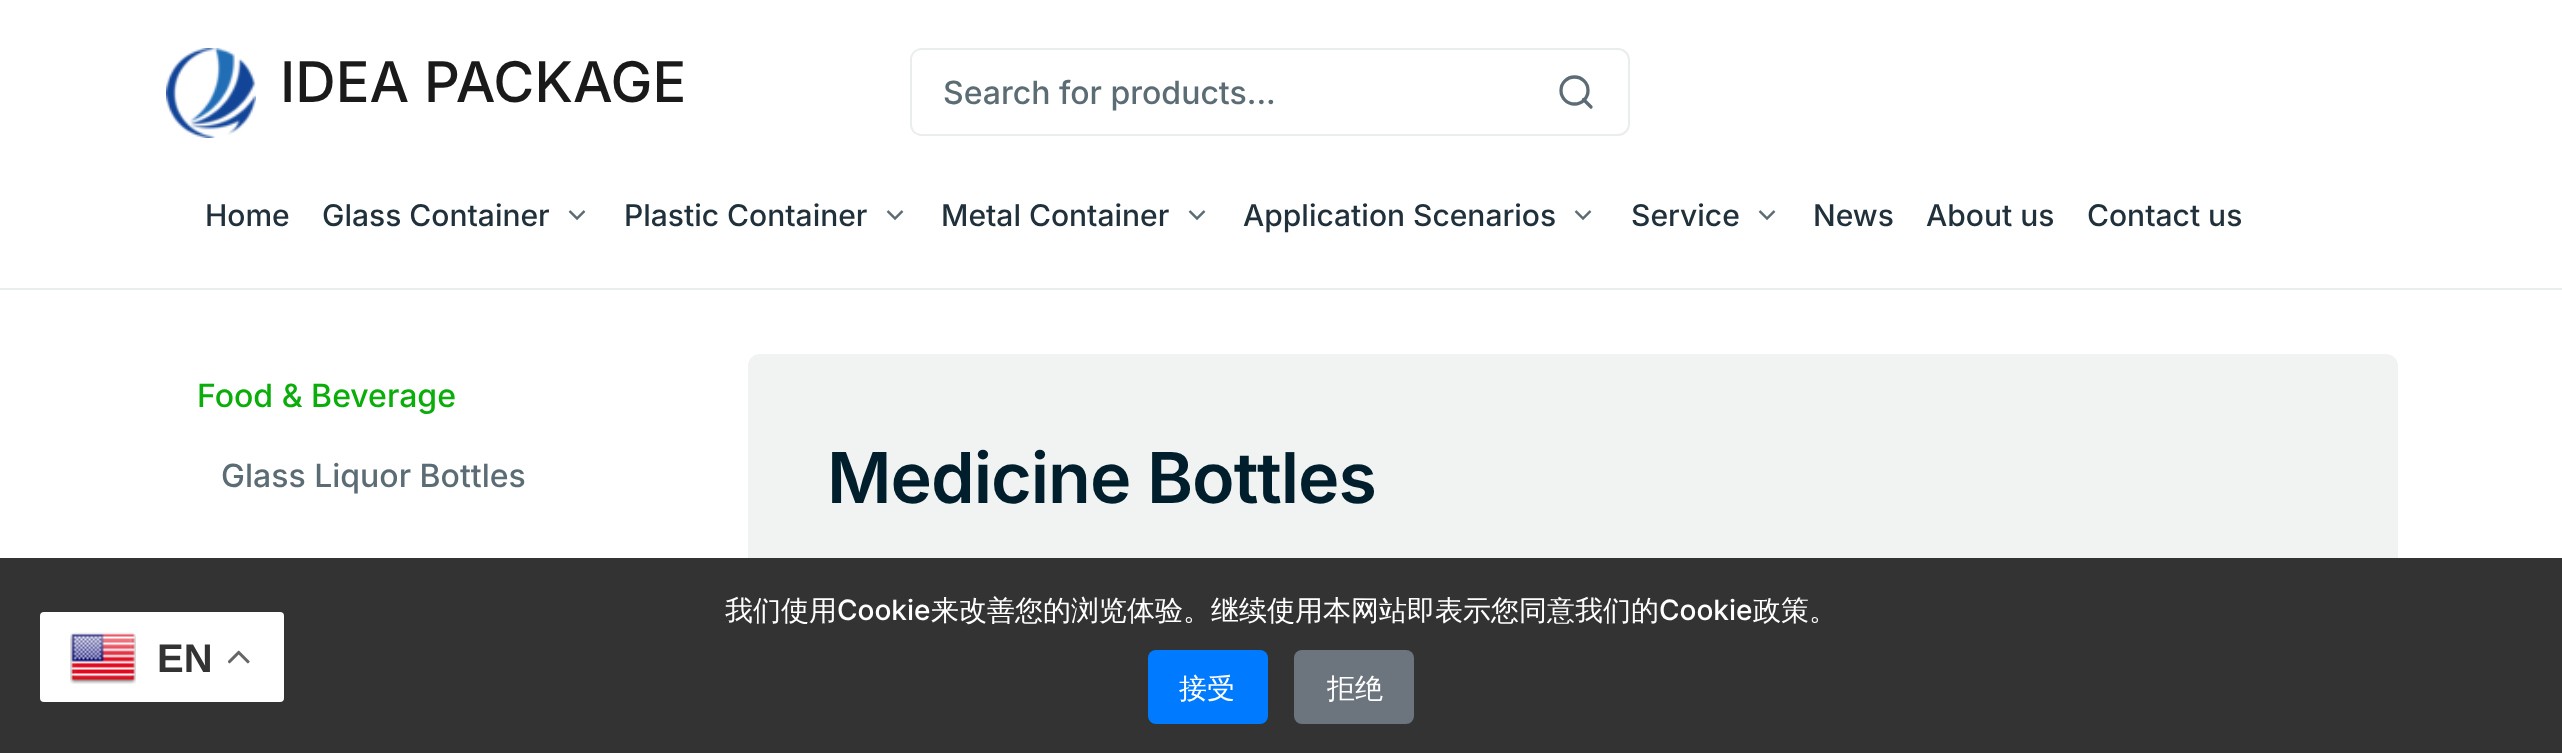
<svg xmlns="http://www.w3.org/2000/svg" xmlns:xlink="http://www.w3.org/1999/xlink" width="2562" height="753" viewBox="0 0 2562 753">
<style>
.cls-1{font:500 56px Inter;fill:#1a1a1a}
.cls-2{font:500 32px Inter;fill:#5c6c75}
.cls-3{font:500 30px Inter;fill:#21313c}
.cls-4{font:500 32px Inter;fill:#0aad0a}
.cls-5{font:600 70px Inter;letter-spacing:-1px;fill:#001e2b}
.cls-6{font:bold 40px Liberation Sans;fill:#333333}
.cls-7{font:500 28px WenQuanYi Zen Hei;fill:#ffffff}
.cls-8{font:500 28px Inter;fill:#ffffff}
</style>
<rect width="100%" height="100%" fill="#ffffff"/>
<rect fill="#e9edec" x="0" y="288" width="2562" height="2"/>
<image xlink:href="image0.png" x="166" y="48" width="90" height="90"/>
<path fill="none" stroke="#e9edec" stroke-width="2" d="M1523 49H1618C1624 49 1629 54 1629 60V124C1629 130 1624 135 1618 135H1523Z"/>
<path fill="#ffffff" d="M922 50H1524V134H922C916.5 134 912 129.5 912 124V60C912 54.5 916.5 50 922 50Z"/>
<path fill="#e9edec" fill-rule="evenodd" d="M922 48H1524V136H922C915 136 910 131 910 124V60C910 53 915 48 922 48ZM922 50H1524V134H922C916 134 912 130 912 124V60C912 54 916 50 922 50Z"/>
<circle fill="none" stroke="#5c6c75" stroke-width="3.3" cx="1574.5" cy="90.5" r="13.5"/>
<path fill="none" stroke="#5c6c75" stroke-width="3.3" stroke-linecap="round" stroke-linejoin="round" d="M1591 107L1583.5 99.5"/>
<image xlink:href="image1.png" x="568" y="210" width="18" height="11"/>
<image xlink:href="image1.png" x="886" y="210" width="18" height="11"/>
<image xlink:href="image1.png" x="1188" y="210" width="18" height="11"/>
<image xlink:href="image1.png" x="1574" y="210" width="18" height="11"/>
<image xlink:href="image1.png" x="1758" y="210" width="18" height="11"/>
<rect fill="#f0f3f2" x="748" y="354" width="1650" height="244" rx="12"/>
<rect fill="#333333" x="0" y="558" width="2562" height="195"/>
<rect fill="#ffffff" x="40" y="612" width="244" height="90" rx="4"/>
<image xlink:href="image2.png" x="70" y="632" width="66" height="52"/>
<image xlink:href="image3.png" x="228" y="650" width="22" height="14"/>
<rect fill="#007bff" x="1148" y="650" width="120" height="74" rx="8"/>
<rect fill="#6c757d" x="1294" y="650" width="120" height="74" rx="8"/>
<text class="cls-1" x="280" y="102">IDEA PACKAGE</text>
<text class="cls-2" x="943" y="104">Search for products...</text>
<text class="cls-3" x="205" y="226">Home</text>
<text class="cls-3" x="322" y="226">Glass Container</text>
<text class="cls-3" x="624" y="226">Plastic Container</text>
<text class="cls-3" x="941" y="226">Metal Container</text>
<text class="cls-3" x="1243" y="226">Application Scenarios</text>
<text class="cls-3" x="1631" y="226">Service</text>
<text class="cls-3" x="1813" y="226">News</text>
<text class="cls-3" x="1926" y="226">About us</text>
<text class="cls-3" x="2087" y="226">Contact us</text>
<text class="cls-4" x="197" y="407">Food &amp; Beverage</text>
<text class="cls-2" x="221" y="487">Glass Liquor Bottles</text>
<text class="cls-5" x="827" y="503">Medicine Bottles</text>
<text class="cls-6" x="157" y="672">EN</text>
<text class="cls-7" x="725" y="620">我们使用</text>
<text class="cls-8" x="837" y="620">Cookie</text>
<text class="cls-7" x="931" y="620">来改善您的浏览体验。继续使用本网站即表示您同意我们的</text>
<text class="cls-8" x="1659" y="620">Cookie</text>
<text class="cls-7" x="1753" y="620">政策。</text>
<text class="cls-7" x="1179" y="698">接受</text>
<text class="cls-7" x="1327" y="698">拒绝</text>
</svg>
